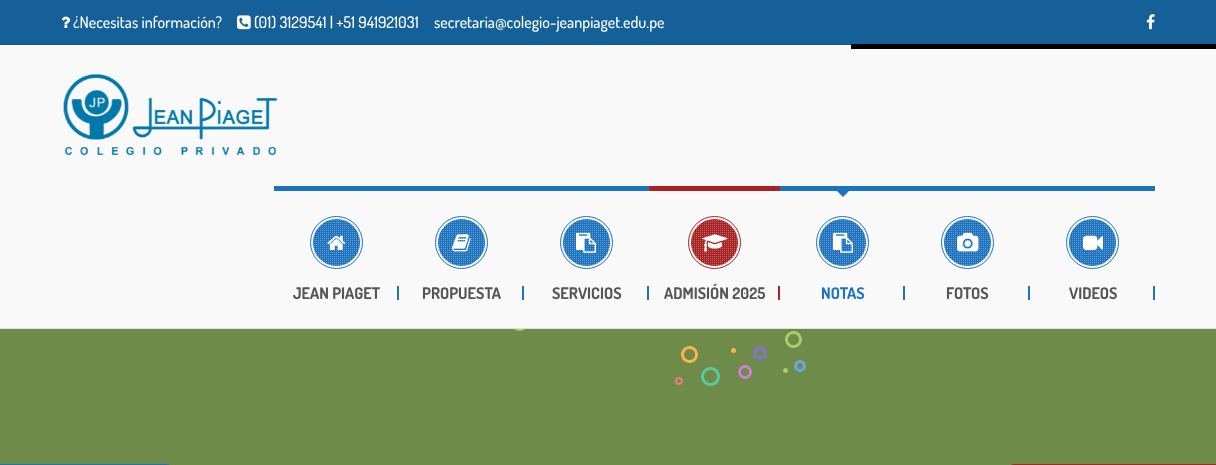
<svg xmlns="http://www.w3.org/2000/svg" xmlns:xlink="http://www.w3.org/1999/xlink" width="1216" height="465" viewBox="0 0 1216 465">
<style>
.cls-1{font:500 16px Dosis;fill:#ffffff}
.cls-2{font:bold 16px Dosis;fill:#555555}
.cls-3{font:bold 16px Dosis;fill:#1e73be}
</style>
<rect width="100%" height="100%" fill="#6e8b49"/>
<rect fill="#f9f9f9" x="0" y="45" width="1216" height="283"/>
<rect fill="#e0e0e0" x="0" y="328" width="1216" height="1"/>
<rect fill="#166099" x="0" y="0" width="1216" height="44"/>
<rect fill="#155b91" x="0" y="44" width="851" height="1"/>
<image xlink:href="image0.png" x="61" y="16" width="10" height="12"/>
<image xlink:href="image1.png" x="237" y="15" width="14" height="15"/>
<image xlink:href="image2.png" x="1146" y="14" width="9" height="16"/>
<rect fill="#000000" x="851" y="44" width="365" height="5"/>
<image xlink:href="image3.png" x="63" y="74" width="215" height="81"/>
<rect fill="#1e73be" x="274" y="186" width="375" height="5"/>
<circle fill="#1e73be" cx="336.5" cy="242.5" r="23.5"/>
<image xlink:href="image4.png" x="314" y="220" width="45" height="45"/>
<circle fill="none" stroke="#1e73be" cx="336.5" cy="242.5" r="26"/>
<image xlink:href="image5.png" x="327" y="235" width="19" height="15"/>
<rect fill="#1e73be" x="397" y="286" width="2" height="14"/>
<circle fill="#1e73be" cx="461.5" cy="242.5" r="23.5"/>
<image xlink:href="image4.png" x="439" y="220" width="45" height="45"/>
<circle fill="none" stroke="#1e73be" cx="461.5" cy="242.5" r="26"/>
<image xlink:href="image6.png" x="452" y="234" width="19" height="18"/>
<rect fill="#1e73be" x="522" y="286" width="2" height="14"/>
<circle fill="#1e73be" cx="586.5" cy="242.5" r="23.5"/>
<image xlink:href="image4.png" x="564" y="220" width="45" height="45"/>
<circle fill="none" stroke="#1e73be" cx="586.5" cy="242.5" r="26"/>
<image xlink:href="image7.png" x="576" y="232" width="20" height="21"/>
<rect fill="#1e73be" x="647" y="286" width="2" height="14"/>
<rect fill="#a82323" x="649" y="186" width="131" height="5"/>
<circle fill="#a82323" cx="714.5" cy="242.5" r="23.5"/>
<image xlink:href="image8.png" x="692" y="220" width="45" height="45"/>
<circle fill="none" stroke="#a82323" cx="714.5" cy="242.5" r="26"/>
<image xlink:href="image9.png" x="702" y="234" width="26" height="18"/>
<rect fill="#a82323" x="778" y="286" width="2" height="14"/>
<path fill="#1e73be" d="M832 186H854L843 197Z"/>
<rect fill="#1e73be" x="780" y="186" width="375" height="5"/>
<circle fill="#1e73be" cx="842.5" cy="242.5" r="23.5"/>
<image xlink:href="image10.png" x="820" y="220" width="45" height="45"/>
<circle fill="none" stroke="#1e73be" cx="842.5" cy="242.5" r="26"/>
<image xlink:href="image11.png" x="833" y="232" width="20" height="21"/>
<rect fill="#1e73be" x="903" y="286" width="2" height="14"/>
<circle fill="#1e73be" cx="967.5" cy="242.5" r="23.5"/>
<image xlink:href="image4.png" x="945" y="220" width="45" height="45"/>
<circle fill="none" stroke="#1e73be" cx="967.5" cy="242.5" r="26"/>
<image xlink:href="image12.png" x="957" y="232" width="22" height="20"/>
<rect fill="#1e73be" x="1028" y="286" width="2" height="14"/>
<circle fill="#1e73be" cx="1092.5" cy="242.5" r="23.5"/>
<image xlink:href="image4.png" x="1070" y="220" width="45" height="45"/>
<circle fill="none" stroke="#1e73be" cx="1092.5" cy="242.5" r="26"/>
<image xlink:href="image13.png" x="1083" y="235" width="20" height="15"/>
<rect fill="#1e73be" x="1153" y="286" width="2" height="14"/>
<image xlink:href="image14.png" x="514" y="329" width="11" height="2"/>
<image xlink:href="image15.png" x="675" y="331" width="131" height="55"/>
<rect fill="#1e73be" x="0" y="464" width="61" height="1"/>
<path fill="#1e73be" d="M61 464H166C171.5 464 176 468.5 176 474V465C176 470.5 171.5 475 166 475H61Z"/>
<path fill="#a82323" d="M1015 464H1155V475H1015C1009.5 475 1005 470.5 1005 465V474C1005 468.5 1009.5 464 1015 464Z"/>
<rect fill="#a82323" x="1155" y="464" width="61" height="1"/>
<text class="cls-1" x="73" y="28">¿Necesitas información?</text>
<text class="cls-1" x="254" y="28">(01) 3129541 | +51 941921031</text>
<text class="cls-1" x="434" y="28">secretaria@colegio-jeanpiaget.edu.pe</text>
<text class="cls-2" x="293" y="299">JEAN PIAGET</text>
<text class="cls-2" x="422" y="299">PROPUESTA</text>
<text class="cls-2" x="552" y="299">SERVICIOS</text>
<text class="cls-2" x="664" y="299">ADMISIÓN 2025</text>
<text class="cls-3" x="821" y="299">NOTAS</text>
<text class="cls-2" x="946" y="299">FOTOS</text>
<text class="cls-2" x="1069" y="299">VIDEOS</text>
</svg>
